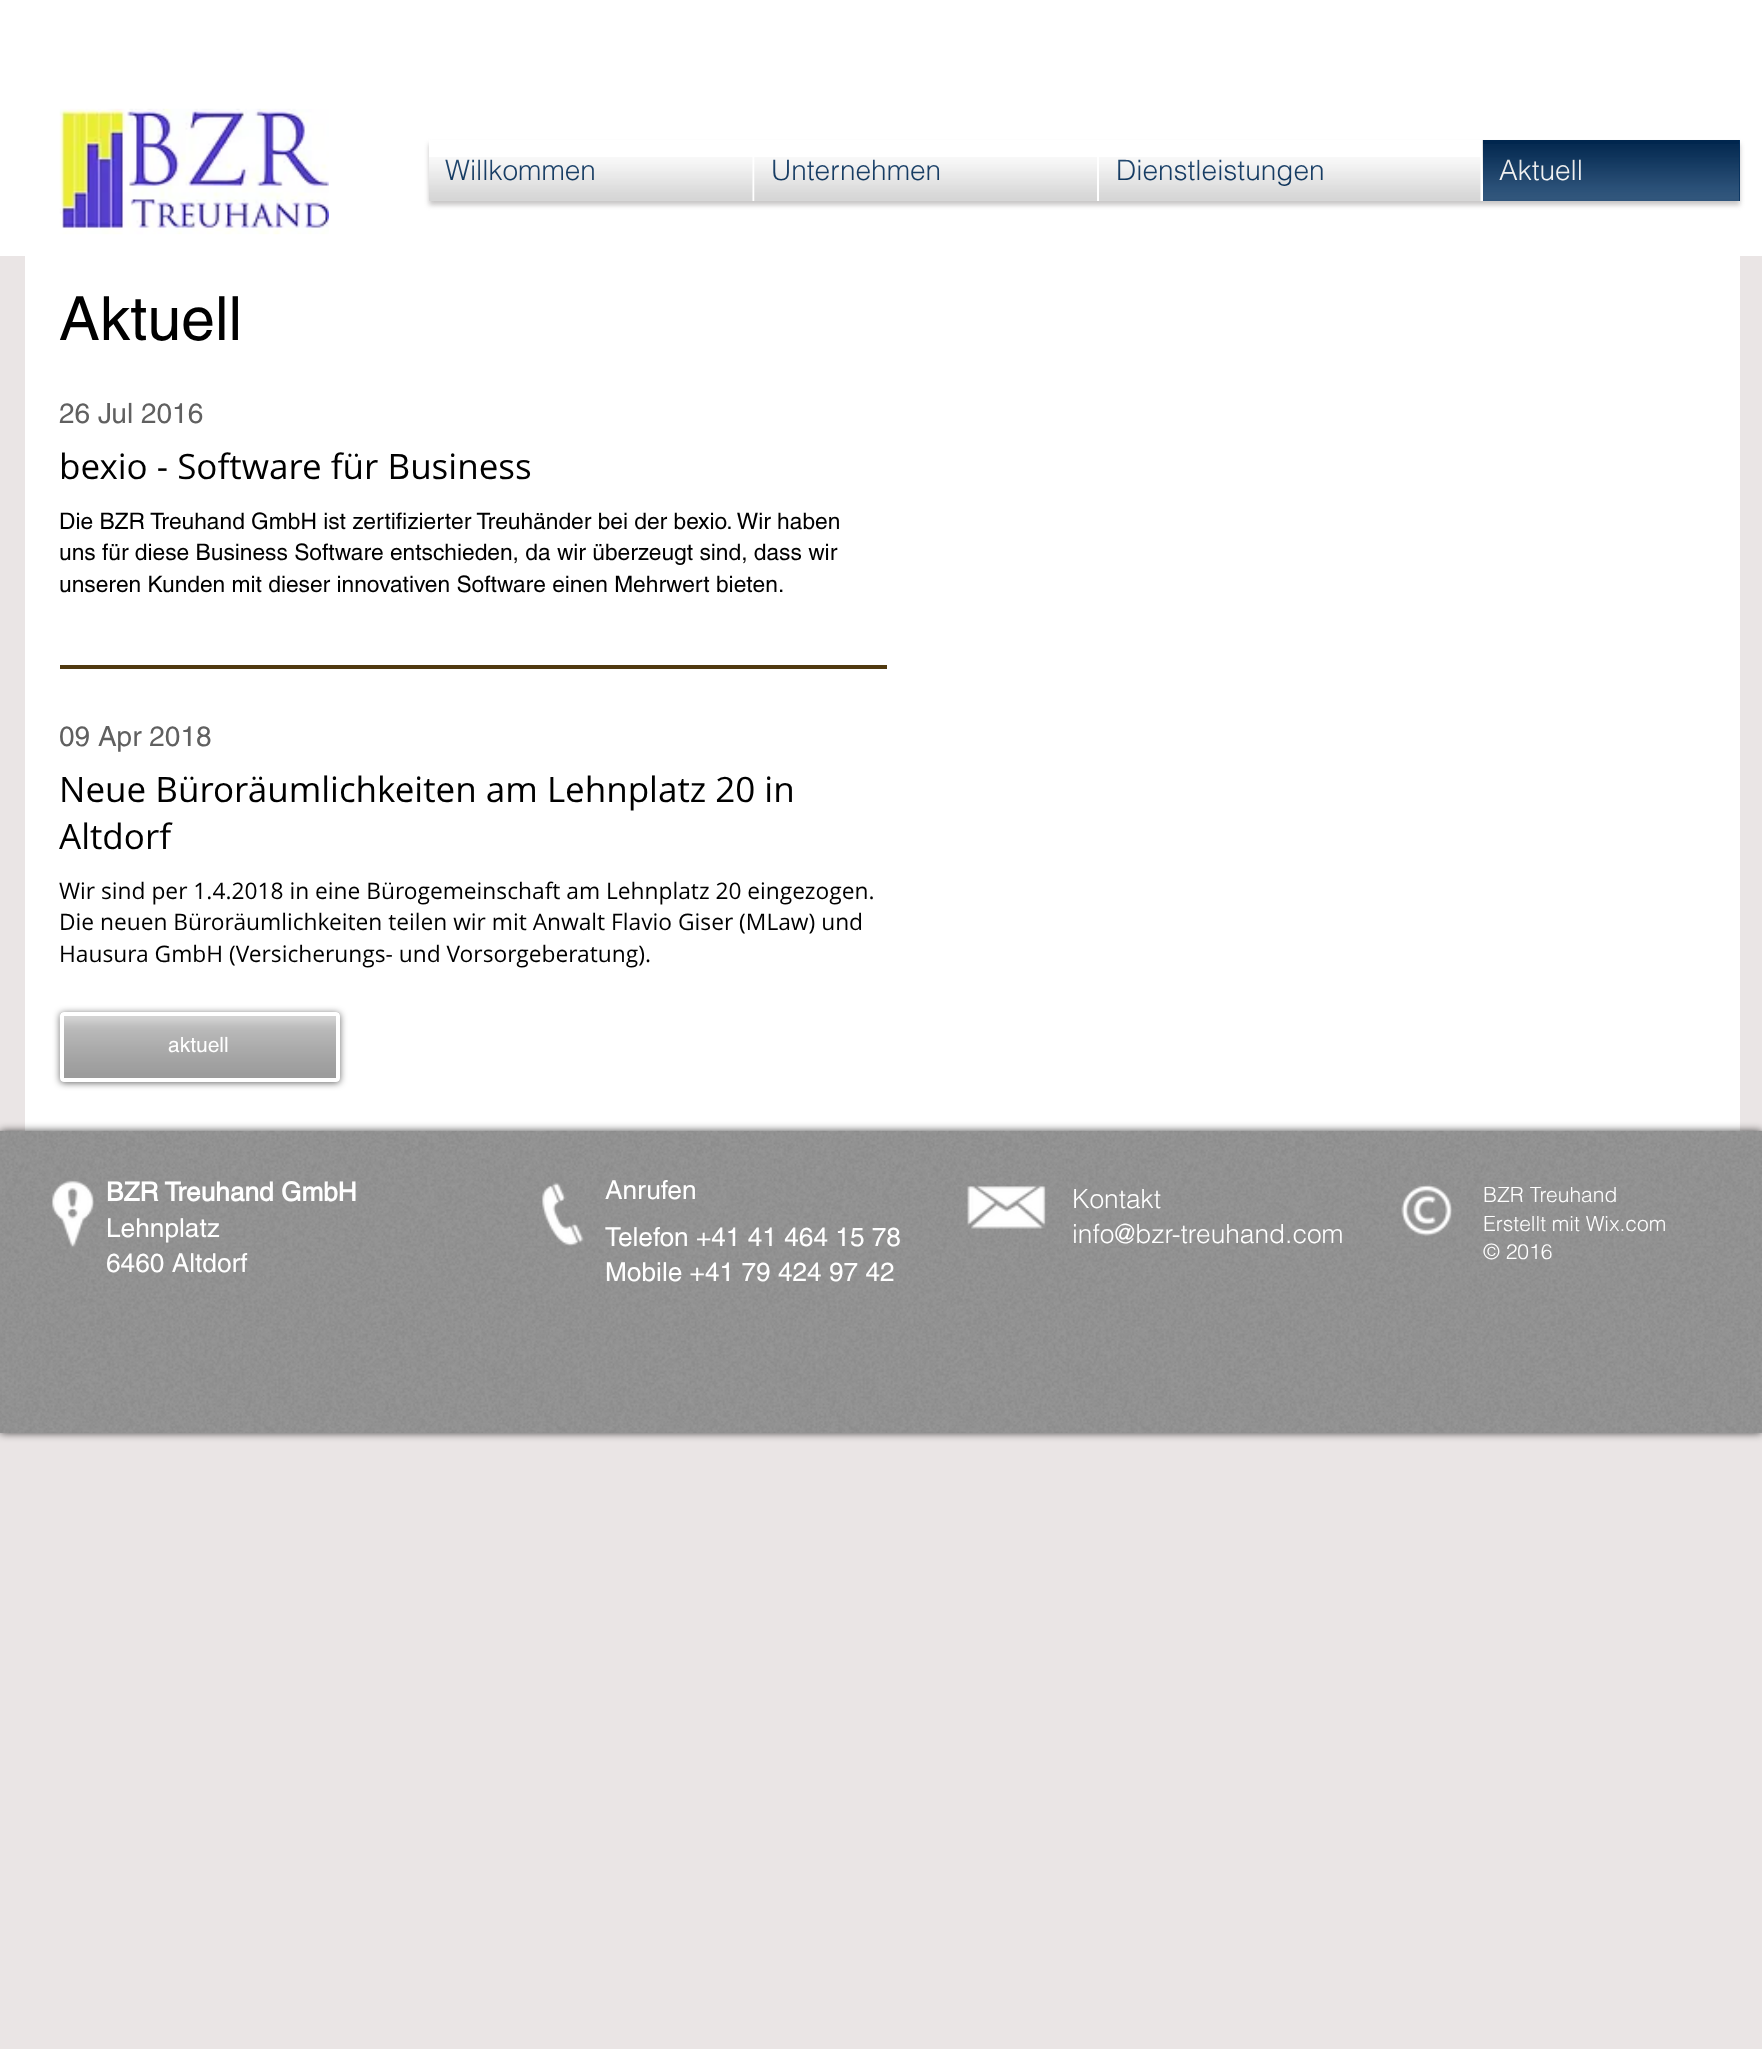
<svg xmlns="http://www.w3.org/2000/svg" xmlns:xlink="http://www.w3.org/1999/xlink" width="1762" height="2049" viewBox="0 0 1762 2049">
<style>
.cls-1{font:300 28px helvetica;fill:#002e5d}
.cls-2{font:300 28px helvetica;fill:#ffffff}
.cls-3{font:61px helvetica;fill:#000000}
.cls-4{font:28px helvetica;fill:#606060}
.cls-5{font:35px Open Sans;fill:#000000}
.cls-6{font:22.75px helvetica;fill:#000000}
.cls-7{font:22.75px Open Sans;fill:#000000}
.cls-8{font:21px helvetica;fill:#ffffff}
.cls-9{font:bold 26.25px helvetica;fill:#ffffff}
.cls-10{font:26.25px helvetica;fill:#ffffff}
.cls-11{font:300 26.25px helvetica;fill:#ffffff}
.cls-12{font:300 21px helvetica;fill:#ffffff}
</style>
<rect width="100%" height="100%" fill="#eae5e5"/>
<rect fill="#ffffff" x="0" y="0" width="1762" height="256"/>
<image xlink:href="image0.png" x="59" y="108" width="270" height="127"/>
<rect fill="#a29e9e" fill-opacity="0.6" filter="blur(2.5px)" x="429" y="144" width="1311" height="61"/>
<rect fill="#ffffff" x="429" y="140" width="1054" height="61"/>
<rect fill="#002e5d" x="1483" y="140" width="257" height="61"/>
<rect fill="#ffffff" x="25" y="256" width="1715" height="875"/>
<rect fill="#50390f" x="60" y="665" width="827" height="4"/>
<rect fill="#000000" fill-opacity="0.6" filter="blur(3.5px)" x="60" y="1013" width="280" height="70" rx="4"/>
<rect fill="#959595" x="60" y="1012" width="280" height="70" rx="4"/>
<image xlink:href="image9.png" x="59" y="1014" width="281" height="67"/>
<rect fill="none" stroke="#ffffff" stroke-width="4" x="62" y="1014" width="276" height="66" rx="2"/>
<rect fill="#000000" fill-opacity="0.7" filter="blur(4.5px)" x="0" y="1131" width="1762" height="302"/>
<rect fill="#959595" x="0" y="1131" width="1762" height="302"/>
<image xlink:href="image10.png" x="0" y="1130" width="1762" height="303"/>
<image xlink:href="image11.png" x="52" y="1180" width="42" height="67"/>
<image xlink:href="image12.png" x="542" y="1182" width="42" height="64"/>
<image xlink:href="image13.png" x="967" y="1185" width="79" height="44"/>
<image xlink:href="image14.png" x="1401" y="1184" width="51" height="52"/>
<text class="cls-1" x="445" y="180">Willkommen</text>
<image xlink:href="image1.png" x="446" y="159" width="149" height="22"/>
<image xlink:href="image2.png" x="429" y="157" width="324" height="44"/>
<text class="cls-1" x="771" y="180">Unternehmen</text>
<image xlink:href="image3.png" x="773" y="159" width="166" height="22"/>
<image xlink:href="image4.png" x="754" y="157" width="343" height="44"/>
<text class="cls-1" x="1116" y="180">Dienstleistungen</text>
<image xlink:href="image5.png" x="1118" y="159" width="204" height="27"/>
<image xlink:href="image6.png" x="1099" y="157" width="382" height="44"/>
<text class="cls-2" x="1499" y="180">Aktuell</text>
<image xlink:href="image7.png" x="1482" y="140" width="257" height="44"/>
<image xlink:href="image8.png" x="1483" y="144" width="257" height="57"/>
<text class="cls-3" x="59" y="340">Aktuell</text>
<text class="cls-4" x="59" y="423">26 Jul 2016</text>
<text class="cls-5" x="59" y="479">bexio - Software für Business</text>
<text class="cls-6"><tspan x="59" y="529">Die BZR Treuhand GmbH ist zertifizierter Treuhänder bei der bexio. Wir haben</tspan><tspan x="59" y="560">uns für diese Business Software entschieden, da wir überzeugt sind, dass wir</tspan><tspan x="59" y="592">unseren Kunden mit dieser innovativen Software einen Mehrwert bieten.</tspan></text>
<text class="cls-4" x="59" y="746">09 Apr 2018</text>
<text class="cls-5"><tspan x="59" y="802">Neue Büroräumlichkeiten am Lehnplatz 20 in</tspan><tspan x="59" y="849">Altdorf</tspan></text>
<text class="cls-7"><tspan x="59" y="899">Wir sind per 1.4.2018 in eine Bürogemeinschaft am Lehnplatz 20 eingezogen.</tspan><tspan x="59" y="930">Die neuen Büroräumlichkeiten teilen wir mit Anwalt Flavio Giser (MLaw) und</tspan><tspan x="59" y="962">Hausura GmbH (Versicherungs- und Vorsorgeberatung).</tspan></text>
<text class="cls-8" x="168" y="1052">aktuell</text>
<text class="cls-9" x="106" y="1201">BZR Treuhand GmbH</text>
<text class="cls-10"><tspan x="106" y="1237">Lehnplatz</tspan><tspan x="106" y="1272">6460 Altdorf</tspan></text>
<text class="cls-10"><tspan x="605" y="1199">Anrufen</tspan><tspan x="605" y="1246">Telefon +41 41 464 15 78</tspan><tspan x="605" y="1281">Mobile +41 79 424 97 42</tspan></text>
<text class="cls-11"><tspan x="1072" y="1208">Kontakt</tspan><tspan x="1072" y="1243">info@bzr-treuhand.com</tspan></text>
<text class="cls-12"><tspan x="1483" y="1202">BZR Treuhand</tspan><tspan x="1483" y="1231">Erstellt mit Wix.com</tspan><tspan x="1483" y="1259">© 2016</tspan></text>
</svg>
